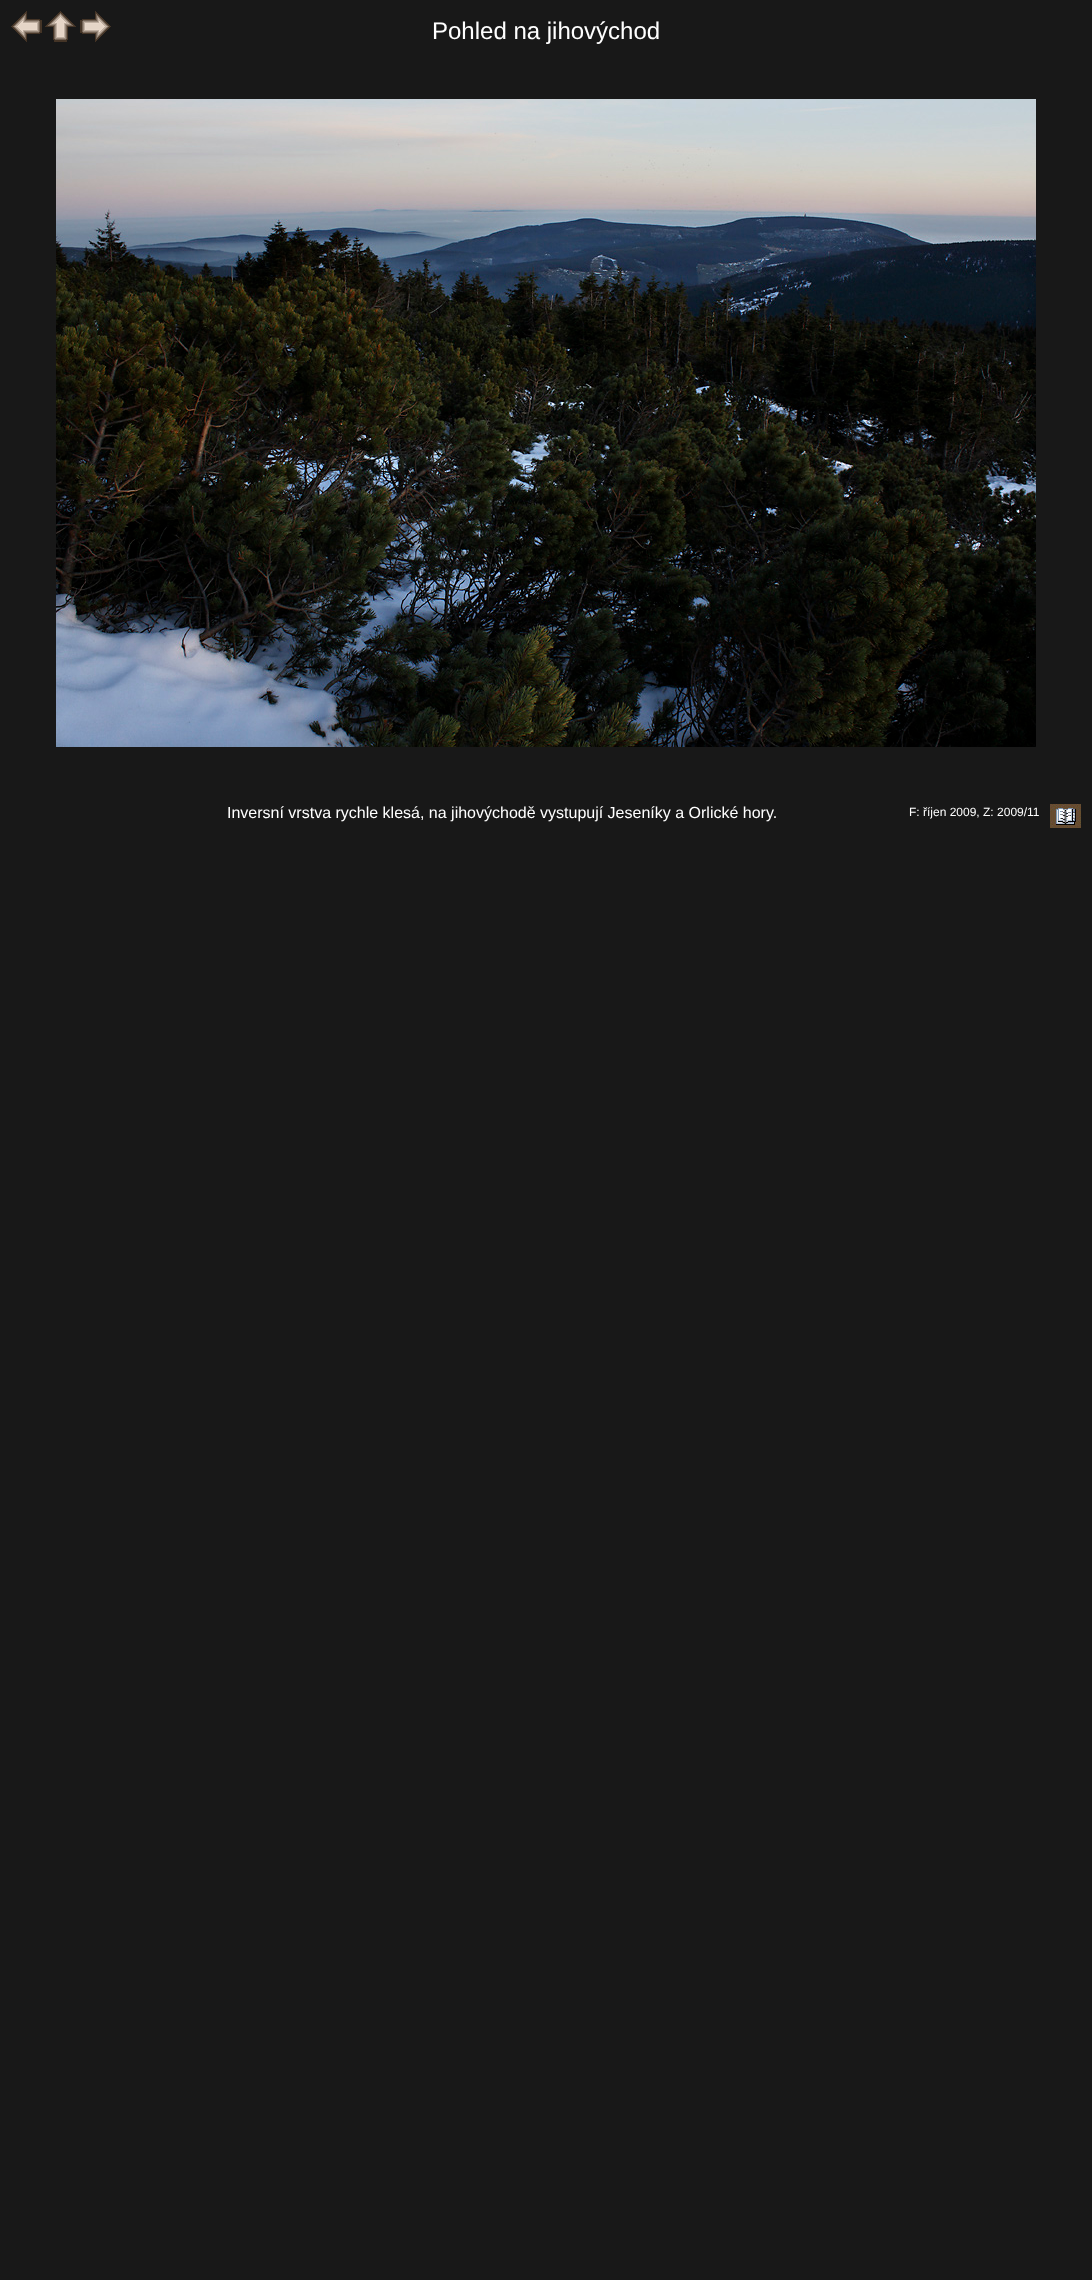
<svg xmlns="http://www.w3.org/2000/svg" xmlns:xlink="http://www.w3.org/1999/xlink" width="1092" height="2280" viewBox="0 0 1092 2280">
<style>
.cls-1{font:24px Liberation Sans;fill:#ffffff}
.cls-2{font:16px Liberation Sans;fill:#ffffff}
.cls-3{font:12px Liberation Sans;fill:#ffffff}
</style>
<rect width="100%" height="100%" fill="#181818"/>
<image xlink:href="image0.png" x="11" y="11" width="31" height="31"/>
<image xlink:href="image1.png" x="45" y="11" width="31" height="31"/>
<image xlink:href="image2.png" x="80" y="11" width="31" height="31"/>
<image xlink:href="image3.png" x="56" y="99" width="980" height="648"/>
<image xlink:href="image4.png" x="1050" y="804" width="31" height="24"/>
<text class="cls-1" x="432" y="39">Pohled na jihovýchod</text>
<text class="cls-2" x="227" y="818">Inversní vrstva rychle klesá, na jihovýchodě vystupují Jeseníky a Orlické hory.</text>
<text class="cls-3" x="909" y="816">F: říjen 2009, Z: 2009/11</text>
</svg>
